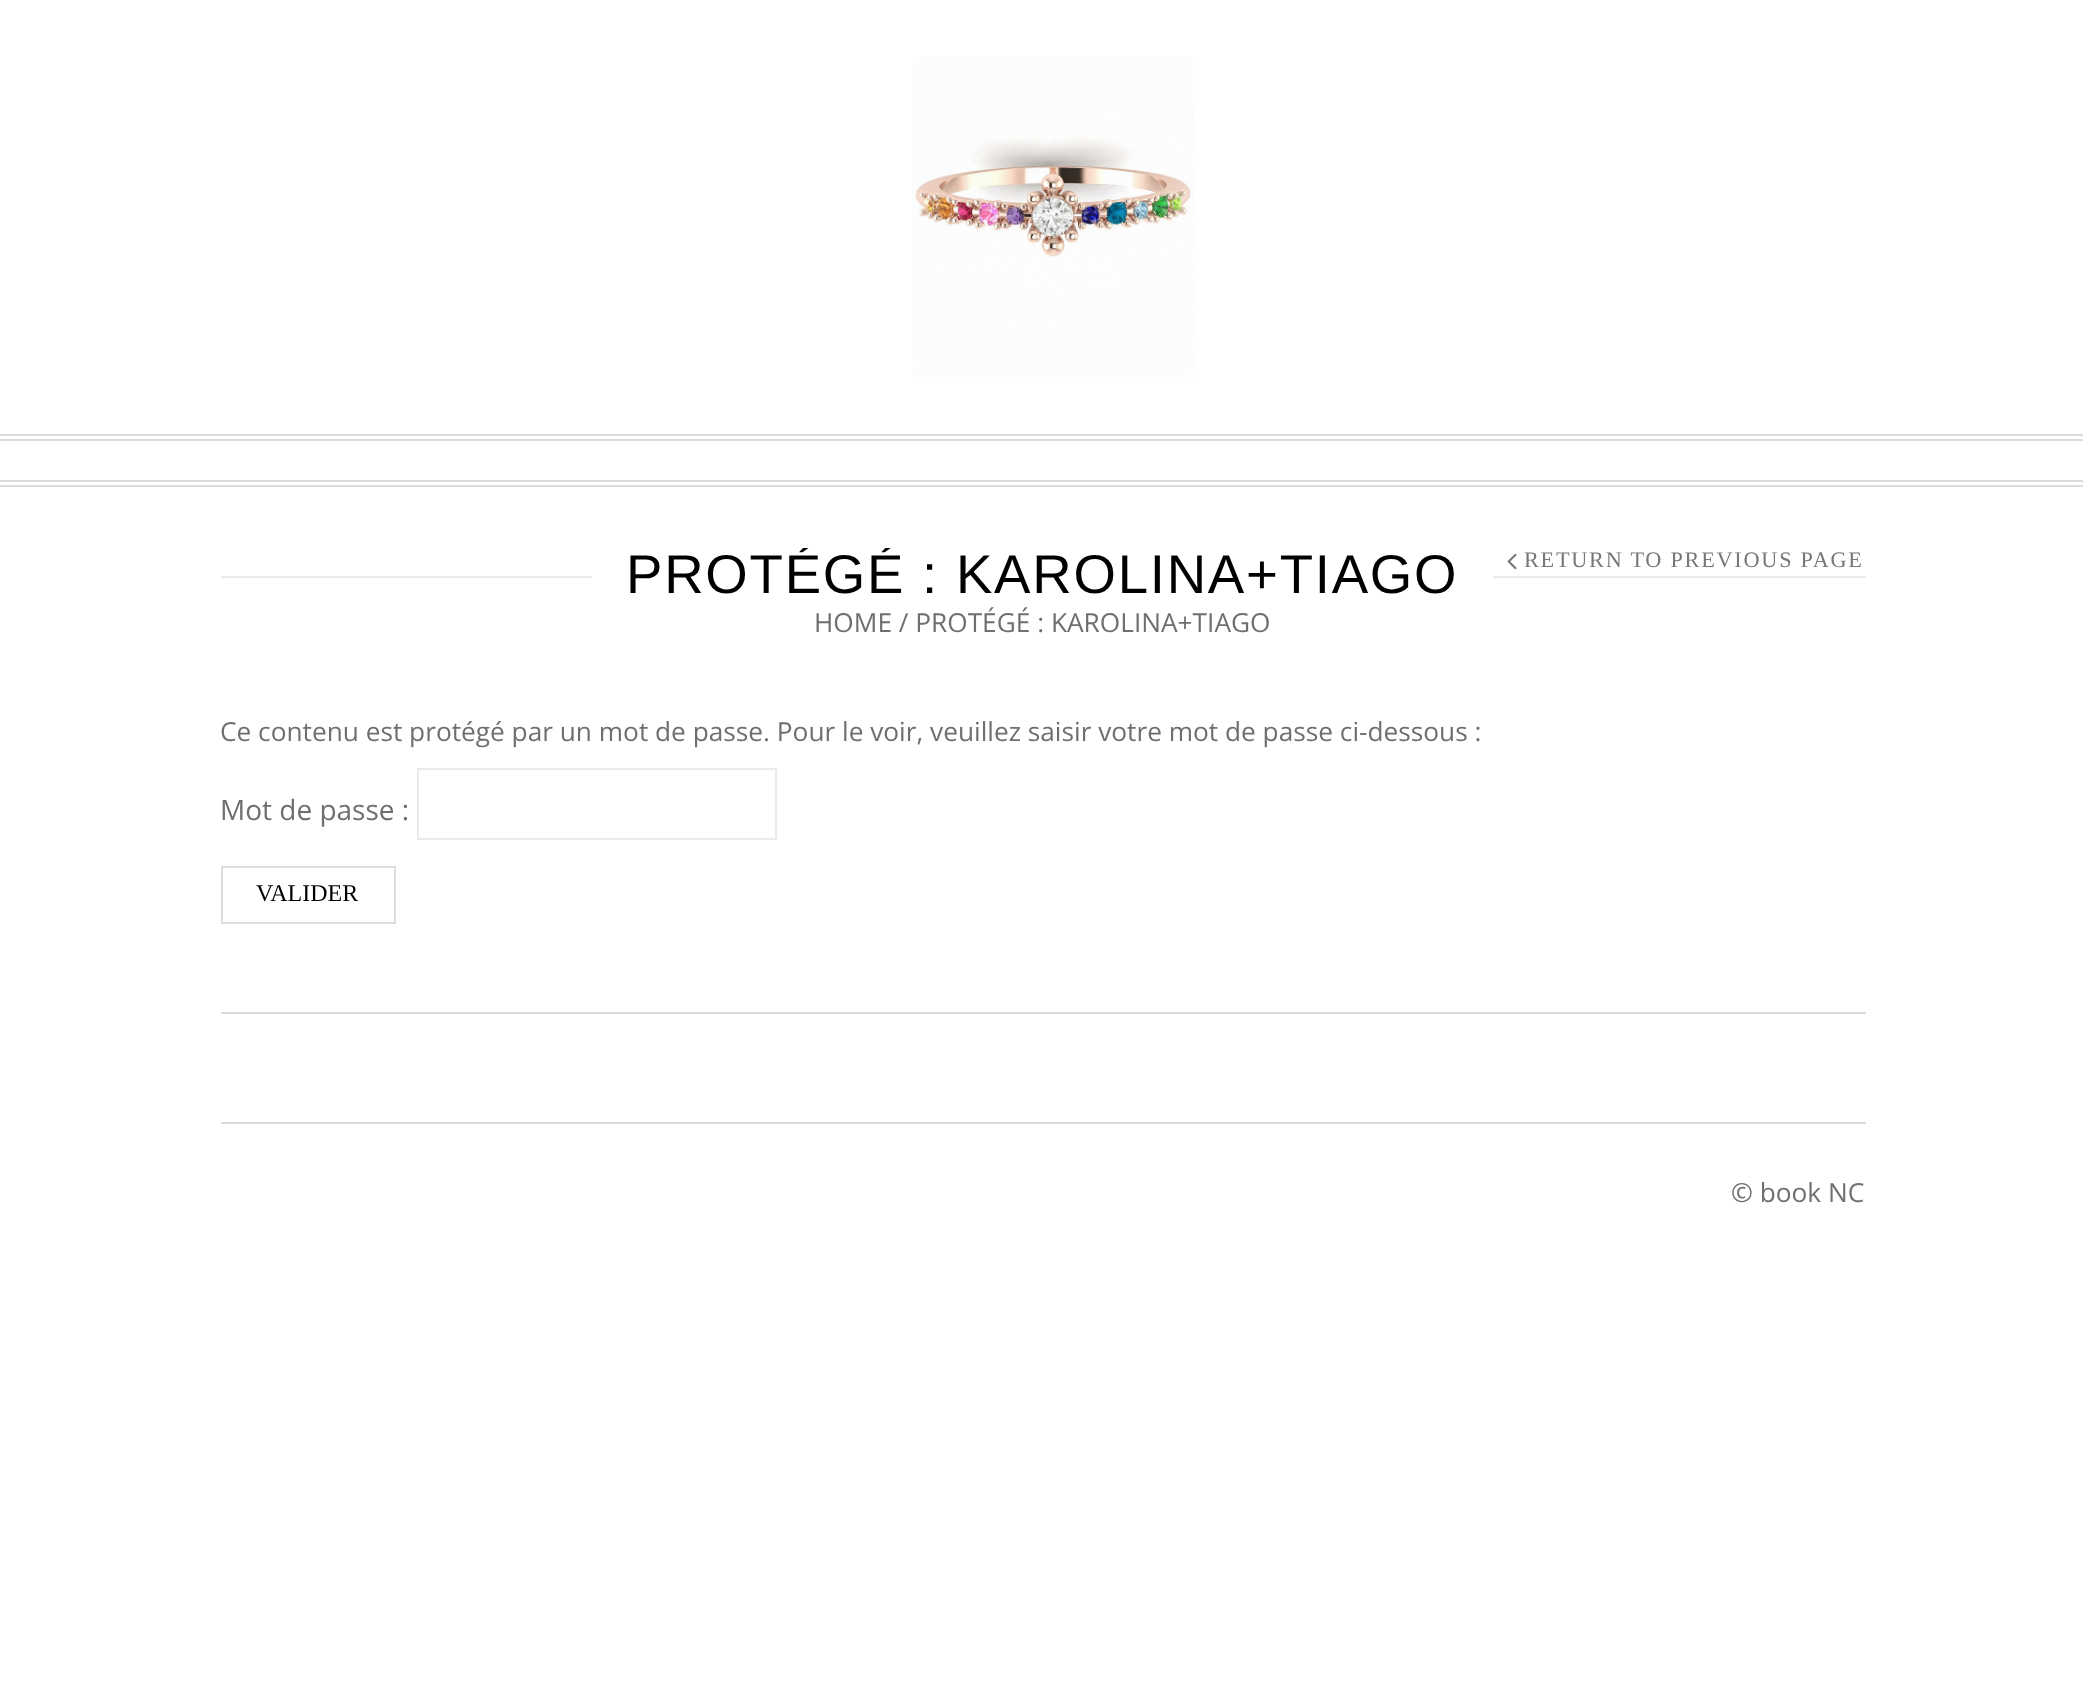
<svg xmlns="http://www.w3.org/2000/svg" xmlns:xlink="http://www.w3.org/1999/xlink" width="2083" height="1687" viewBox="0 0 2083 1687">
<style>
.cls-1{font:54.6px Liberation Sans;letter-spacing:1.75px;fill:#000000}
.cls-2{font:22.25px Liberation Serif;letter-spacing:1.75px;fill:#777777}
.cls-3{font:26.25px Open Sans;fill:#6f6f6f}
.cls-4{font:28px Open Sans;fill:#6f6f6f}
.cls-5{font:24px Liberation Serif;fill:#000000}
</style>
<defs>
<clipPath id="clip1"><rect x="221" y="548" width="1645" height="54"/></clipPath>
</defs>
<rect width="100%" height="100%" fill="#ffffff"/>
<image xlink:href="image0.png" x="912" y="56" width="282" height="321"/>
<rect fill="#dbdbdb" x="0" y="434" width="2083" height="2"/>
<rect fill="#dbdbdb" x="0" y="485" width="2083" height="2"/>
<rect fill="#dbdbdb" x="0" y="439" width="2083" height="2"/>
<rect fill="#dbdbdb" x="0" y="480" width="2083" height="2"/>
<rect fill="#ebebeb" x="221" y="576" width="1645" height="2"/>
<rect fill="#ffffff" x="592" y="576" width="901" height="2"/>
<image xlink:href="image1.png" x="1507" y="553" width="10" height="17"/>
<rect fill="none" stroke="#ebebeb" stroke-width="2" x="418" y="769" width="358" height="70"/>
<rect fill="none" stroke="#dddddd" stroke-width="2" x="222" y="867" width="173" height="56"/>
<rect fill="#dbdbdb" x="221" y="1012" width="1645" height="2"/>
<rect fill="#dbdbdb" x="221" y="1122" width="1645" height="2"/>
<g clip-path="url(#clip1)">
<text class="cls-1" x="626" y="593">PROTÉGÉ : KAROLINA+TIAGO</text>
</g>
<text class="cls-2" x="1524" y="567">RETURN TO PREVIOUS PAGE</text>
<text class="cls-3" x="814" y="632">HOME / PROTÉGÉ : KAROLINA+TIAGO</text>
<text class="cls-3" x="220" y="741">Ce contenu est protégé par un mot de passe. Pour le voir, veuillez saisir votre mot de passe ci-dessous :</text>
<text class="cls-4" x="220" y="820">Mot de passe :</text>
<text class="cls-5" x="256" y="901">VALIDER</text>
<text class="cls-3" x="1731" y="1202">© book NC</text>
</svg>
